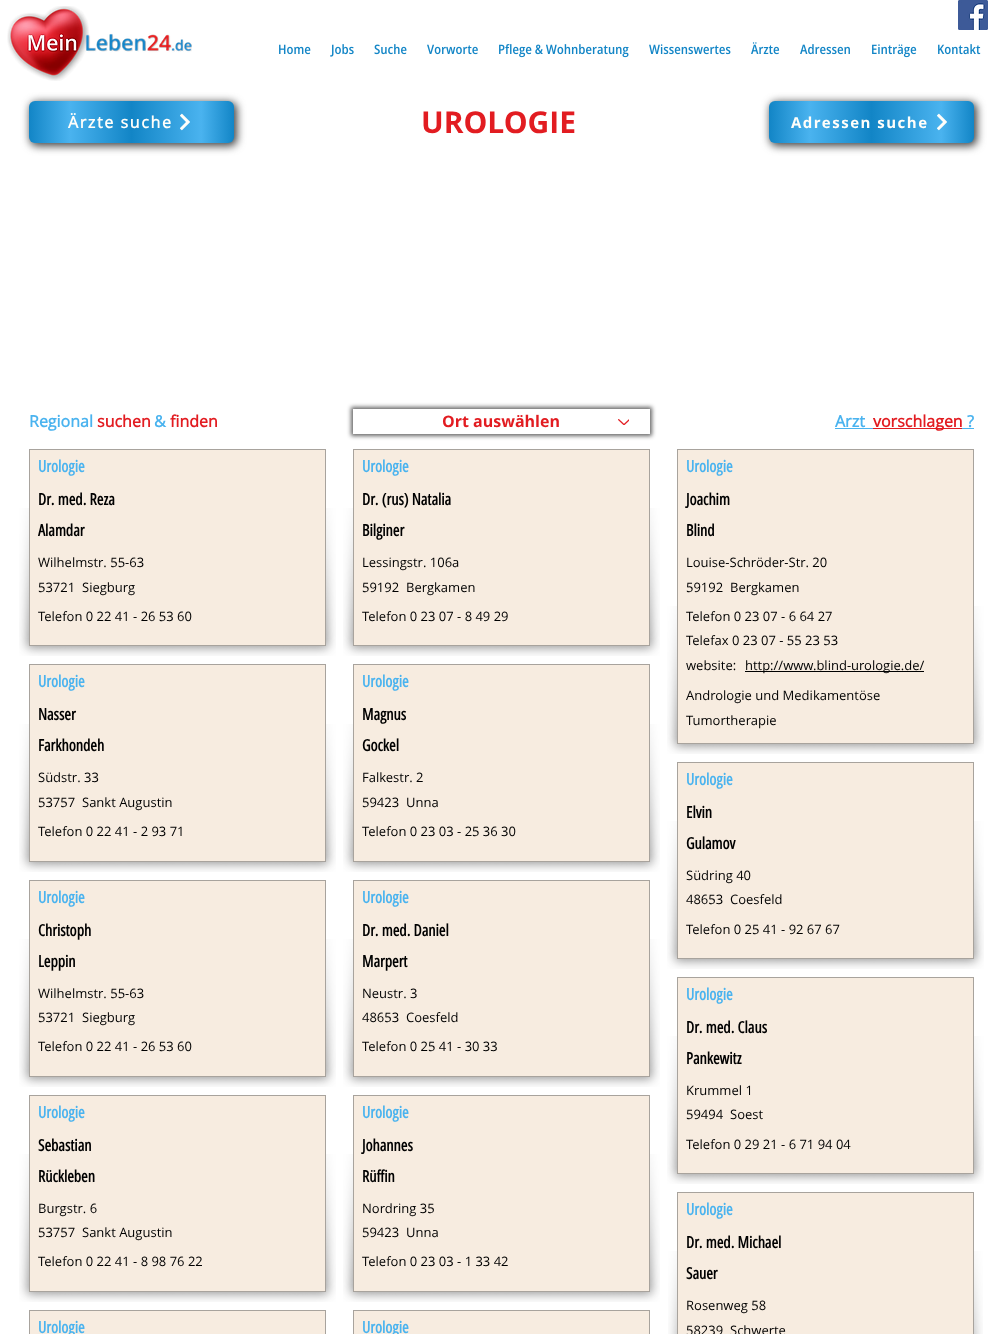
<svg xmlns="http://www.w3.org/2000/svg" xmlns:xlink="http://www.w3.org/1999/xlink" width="995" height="1334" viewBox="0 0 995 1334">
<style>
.cls-1{font:bold 16px 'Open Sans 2';letter-spacing:1.6px;fill:#fffefa}
.cls-2{font:bold 30px Open Sans;fill:#e21c21}
.cls-3{font:bold 15px Open Sans;letter-spacing:1.5px;fill:#fffefa}
.cls-4{font:bold 16px 'Open Sans 2';fill:#4ab3ef}
.cls-5{font:bold 16px 'Open Sans 2';fill:#e21c21}
.cls-6{font:bold 16px Open Sans;fill:#e21c21}
.cls-7{font:bold 16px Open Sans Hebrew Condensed;fill:#4ab3ef}
.cls-8{font:bold 16px Open Sans Hebrew Condensed;fill:#000000}
.cls-9{font:13px Open Sans;fill:#000000}
</style>
<defs>
<linearGradient id="g1" gradientUnits="userSpaceOnUse" x1="29" y1="122" x2="234" y2="122"><stop offset="0" stop-color="#1285c6"/><stop offset="0.2" stop-color="#4ab3ef"/><stop offset="0.5" stop-color="#1285c6"/><stop offset="0.84" stop-color="#4ab3ef"/><stop offset="1" stop-color="#1285c6"/></linearGradient>
<linearGradient id="g2" gradientUnits="userSpaceOnUse" x1="769" y1="122" x2="974" y2="122"><stop offset="0" stop-color="#1285c6"/><stop offset="0.2" stop-color="#4ab3ef"/><stop offset="0.5" stop-color="#1285c6"/><stop offset="0.84" stop-color="#4ab3ef"/><stop offset="1" stop-color="#1285c6"/></linearGradient>
<clipPath id="clip1"><path d="M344 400H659V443H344ZM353 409H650V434H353Z" clip-rule="evenodd"/></clipPath>
</defs>
<rect width="100%" height="100%" fill="#ffffff"/>
<image xlink:href="image0.png" x="7" y="6" width="185" height="75"/>
<image xlink:href="image1.png" x="958" y="0" width="30" height="30"/>
<image xlink:href="image2.png" x="279" y="44" width="32" height="11"/>
<image xlink:href="image3.png" x="330" y="44" width="24" height="13"/>
<image xlink:href="image4.png" x="374" y="44" width="33" height="11"/>
<image xlink:href="image5.png" x="427" y="44" width="51" height="11"/>
<image xlink:href="image6.png" x="499" y="44" width="130" height="14"/>
<image xlink:href="image7.png" x="649" y="44" width="82" height="11"/>
<image xlink:href="image8.png" x="751" y="42" width="29" height="13"/>
<image xlink:href="image9.png" x="800" y="44" width="50" height="11"/>
<image xlink:href="image10.png" x="872" y="44" width="45" height="14"/>
<image xlink:href="image11.png" x="938" y="44" width="43" height="11"/>
<rect fill="#414141" filter="blur(4px)" x="30" y="102" width="207" height="44" rx="7"/>
<rect fill="url(#g1)" x="29" y="101" width="205" height="42" rx="6"/>
<image xlink:href="image12.png" x="180" y="113" width="10" height="18"/>
<rect fill="#414141" filter="blur(4px)" x="770" y="102" width="207" height="44" rx="7"/>
<rect fill="url(#g2)" x="769" y="101" width="205" height="42" rx="6"/>
<image xlink:href="image13.png" x="937" y="113" width="10" height="18"/>
<g clip-path="url(#clip1)">
<rect fill="#000000" fill-opacity="0.6" filter="blur(2px)" x="351" y="407" width="301" height="29"/>
</g>
<image xlink:href="image14.png" x="618" y="419" width="11" height="6"/>
<rect fill="#4ab3ef" x="835" y="428" width="38" height="1"/>
<rect fill="#e21c21" x="873" y="428" width="89" height="1"/>
<rect fill="#4ab3ef" x="962" y="428" width="12" height="1"/>
<image xlink:href="image15.png" x="19" y="508" width="45" height="148"/>
<image xlink:href="image17.png" x="291" y="508" width="45" height="148"/>
<rect fill="#f7ece0" stroke="#a8a39d" x="29.5" y="449.5" width="296" height="196"/>
<image xlink:href="image16.png" x="64" y="646" width="227" height="10"/>
<image xlink:href="image15.png" x="19" y="724" width="45" height="148"/>
<image xlink:href="image17.png" x="291" y="724" width="45" height="148"/>
<rect fill="#f7ece0" stroke="#a8a39d" x="29.5" y="664.5" width="296" height="197"/>
<image xlink:href="image16.png" x="64" y="862" width="227" height="10"/>
<image xlink:href="image15.png" x="19" y="939" width="45" height="148"/>
<image xlink:href="image17.png" x="291" y="939" width="45" height="148"/>
<rect fill="#f7ece0" stroke="#a8a39d" x="29.5" y="880.5" width="296" height="196"/>
<image xlink:href="image16.png" x="64" y="1077" width="227" height="10"/>
<image xlink:href="image15.png" x="19" y="1154" width="45" height="148"/>
<image xlink:href="image17.png" x="291" y="1154" width="45" height="148"/>
<rect fill="#f7ece0" stroke="#a8a39d" x="29.5" y="1095.5" width="296" height="196"/>
<image xlink:href="image16.png" x="64" y="1292" width="227" height="10"/>
<rect fill="#f7ece0" stroke="#a8a39d" x="29.5" y="1310.5" width="296" height="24"/>
<image xlink:href="image15.png" x="343" y="508" width="45" height="148"/>
<image xlink:href="image17.png" x="615" y="508" width="45" height="148"/>
<rect fill="#f7ece0" stroke="#a8a39d" x="353.5" y="449.5" width="296" height="196"/>
<image xlink:href="image16.png" x="388" y="646" width="227" height="10"/>
<image xlink:href="image15.png" x="343" y="724" width="45" height="148"/>
<image xlink:href="image17.png" x="615" y="724" width="45" height="148"/>
<rect fill="#f7ece0" stroke="#a8a39d" x="353.5" y="664.5" width="296" height="197"/>
<image xlink:href="image16.png" x="388" y="862" width="227" height="10"/>
<image xlink:href="image15.png" x="343" y="939" width="45" height="148"/>
<image xlink:href="image17.png" x="615" y="939" width="45" height="148"/>
<rect fill="#f7ece0" stroke="#a8a39d" x="353.5" y="880.5" width="296" height="196"/>
<image xlink:href="image16.png" x="388" y="1077" width="227" height="10"/>
<image xlink:href="image15.png" x="343" y="1154" width="45" height="148"/>
<image xlink:href="image17.png" x="615" y="1154" width="45" height="148"/>
<rect fill="#f7ece0" stroke="#a8a39d" x="353.5" y="1095.5" width="296" height="196"/>
<image xlink:href="image16.png" x="388" y="1292" width="227" height="10"/>
<rect fill="#f7ece0" stroke="#a8a39d" x="353.5" y="1310.5" width="296" height="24"/>
<image xlink:href="image15.png" x="667" y="606" width="45" height="148"/>
<image xlink:href="image17.png" x="939" y="606" width="45" height="148"/>
<rect fill="#f7ece0" stroke="#a8a39d" x="677.5" y="449.5" width="296" height="294"/>
<rect fill="#000000" x="745" y="671" width="179" height="1"/>
<image xlink:href="image16.png" x="712" y="744" width="227" height="10"/>
<image xlink:href="image15.png" x="667" y="821" width="45" height="148"/>
<image xlink:href="image17.png" x="939" y="821" width="45" height="148"/>
<rect fill="#f7ece0" stroke="#a8a39d" x="677.5" y="762.5" width="296" height="196"/>
<image xlink:href="image16.png" x="712" y="959" width="227" height="10"/>
<image xlink:href="image15.png" x="667" y="1036" width="45" height="148"/>
<image xlink:href="image17.png" x="939" y="1036" width="45" height="148"/>
<rect fill="#f7ece0" stroke="#a8a39d" x="677.5" y="977.5" width="296" height="196"/>
<image xlink:href="image16.png" x="712" y="1174" width="227" height="10"/>
<rect fill="#f7ece0" stroke="#a8a39d" x="677.5" y="1192.5" width="296" height="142"/>
<image xlink:href="image18.png" x="668" y="1251" width="9" height="83"/>
<image xlink:href="image19.png" x="974" y="1251" width="9" height="83"/>
<text class="cls-1" x="68" y="128">Ärzte suche</text>
<text class="cls-2" x="421" y="133">UROLOGIE</text>
<text class="cls-3" x="791" y="128">Adressen suche</text>
<text class="cls-4" x="29" y="427">Regional</text>
<text class="cls-5" x="97" y="427">suchen</text>
<text class="cls-4" x="154" y="427">&amp;</text>
<text class="cls-5" x="170" y="427">finden</text>
<text class="cls-6" x="442" y="427">Ort auswählen</text>
<text class="cls-4" x="835" y="427">Arzt</text>
<text class="cls-5" x="873" y="427">vorschlagen</text>
<text class="cls-4" x="967" y="427">?</text>
<text class="cls-7" x="38" y="472">Urologie</text>
<text class="cls-8"><tspan x="38" y="505">Dr. med. Reza</tspan><tspan x="38" y="536">Alamdar</tspan></text>
<text class="cls-9"><tspan x="38" y="567">Wilhelmstr. 55-63</tspan><tspan x="38" y="592">53721</tspan></text>
<text class="cls-9" x="82" y="592">Siegburg</text>
<text class="cls-9" x="38" y="621">Telefon 0 22 41 - 26 53 60</text>
<text class="cls-7" x="38" y="687">Urologie</text>
<text class="cls-8"><tspan x="38" y="720">Nasser</tspan><tspan x="38" y="751">Farkhondeh</tspan></text>
<text class="cls-9"><tspan x="38" y="782">Südstr. 33</tspan><tspan x="38" y="807">53757</tspan></text>
<text class="cls-9" x="82" y="807">Sankt Augustin</text>
<text class="cls-9" x="38" y="836">Telefon 0 22 41 - 2 93 71</text>
<text class="cls-7" x="38" y="903">Urologie</text>
<text class="cls-8"><tspan x="38" y="936">Christoph</tspan><tspan x="38" y="967">Leppin</tspan></text>
<text class="cls-9"><tspan x="38" y="998">Wilhelmstr. 55-63</tspan><tspan x="38" y="1022">53721</tspan></text>
<text class="cls-9" x="82" y="1022">Siegburg</text>
<text class="cls-9" x="38" y="1051">Telefon 0 22 41 - 26 53 60</text>
<text class="cls-7" x="38" y="1118">Urologie</text>
<text class="cls-8"><tspan x="38" y="1151">Sebastian</tspan><tspan x="38" y="1182">Rückleben</tspan></text>
<text class="cls-9"><tspan x="38" y="1213">Burgstr. 6</tspan><tspan x="38" y="1237">53757</tspan></text>
<text class="cls-9" x="82" y="1237">Sankt Augustin</text>
<text class="cls-9" x="38" y="1266">Telefon 0 22 41 - 8 98 76 22</text>
<text class="cls-7" x="38" y="1333">Urologie</text>
<text class="cls-7" x="362" y="472">Urologie</text>
<text class="cls-8"><tspan x="362" y="505">Dr. (rus) Natalia</tspan><tspan x="362" y="536">Bilginer</tspan></text>
<text class="cls-9"><tspan x="362" y="567">Lessingstr. 106a</tspan><tspan x="362" y="592">59192</tspan></text>
<text class="cls-9" x="406" y="592">Bergkamen</text>
<text class="cls-9" x="362" y="621">Telefon 0 23 07 - 8 49 29</text>
<text class="cls-7" x="362" y="687">Urologie</text>
<text class="cls-8"><tspan x="362" y="720">Magnus</tspan><tspan x="362" y="751">Gockel</tspan></text>
<text class="cls-9"><tspan x="362" y="782">Falkestr. 2</tspan><tspan x="362" y="807">59423</tspan></text>
<text class="cls-9" x="406" y="807">Unna</text>
<text class="cls-9" x="362" y="836">Telefon 0 23 03 - 25 36 30</text>
<text class="cls-7" x="362" y="903">Urologie</text>
<text class="cls-8"><tspan x="362" y="936">Dr. med. Daniel</tspan><tspan x="362" y="967">Marpert</tspan></text>
<text class="cls-9"><tspan x="362" y="998">Neustr. 3</tspan><tspan x="362" y="1022">48653</tspan></text>
<text class="cls-9" x="406" y="1022">Coesfeld</text>
<text class="cls-9" x="362" y="1051">Telefon 0 25 41 - 30 33</text>
<text class="cls-7" x="362" y="1118">Urologie</text>
<text class="cls-8"><tspan x="362" y="1151">Johannes</tspan><tspan x="362" y="1182">Rüffin</tspan></text>
<text class="cls-9"><tspan x="362" y="1213">Nordring 35</tspan><tspan x="362" y="1237">59423</tspan></text>
<text class="cls-9" x="406" y="1237">Unna</text>
<text class="cls-9" x="362" y="1266">Telefon 0 23 03 - 1 33 42</text>
<text class="cls-7" x="362" y="1333">Urologie</text>
<text class="cls-7" x="686" y="472">Urologie</text>
<text class="cls-8"><tspan x="686" y="505">Joachim</tspan><tspan x="686" y="536">Blind</tspan></text>
<text class="cls-9"><tspan x="686" y="567">Louise-Schröder-Str. 20</tspan><tspan x="686" y="592">59192</tspan></text>
<text class="cls-9" x="730" y="592">Bergkamen</text>
<text class="cls-9"><tspan x="686" y="621">Telefon 0 23 07 - 6 64 27</tspan><tspan x="686" y="645">Telefax 0 23 07 - 55 23 53</tspan><tspan x="686" y="670">website:</tspan></text>
<text class="cls-9" x="745" y="670">http://www.blind-urologie.de/</text>
<text class="cls-9"><tspan x="686" y="700">Andrologie und Medikamentöse</tspan><tspan x="686" y="725">Tumortherapie</tspan></text>
<text class="cls-7" x="686" y="785">Urologie</text>
<text class="cls-8"><tspan x="686" y="818">Elvin</tspan><tspan x="686" y="849">Gulamov</tspan></text>
<text class="cls-9"><tspan x="686" y="880">Südring 40</tspan><tspan x="686" y="904">48653</tspan></text>
<text class="cls-9" x="730" y="904">Coesfeld</text>
<text class="cls-9" x="686" y="934">Telefon 0 25 41 - 92 67 67</text>
<text class="cls-7" x="686" y="1000">Urologie</text>
<text class="cls-8"><tspan x="686" y="1033">Dr. med. Claus</tspan><tspan x="686" y="1064">Pankewitz</tspan></text>
<text class="cls-9"><tspan x="686" y="1095">Krummel 1</tspan><tspan x="686" y="1119">59494</tspan></text>
<text class="cls-9" x="730" y="1119">Soest</text>
<text class="cls-9" x="686" y="1149">Telefon 0 29 21 - 6 71 94 04</text>
<text class="cls-7" x="686" y="1215">Urologie</text>
<text class="cls-8"><tspan x="686" y="1248">Dr. med. Michael</tspan><tspan x="686" y="1279">Sauer</tspan></text>
<text class="cls-9"><tspan x="686" y="1310">Rosenweg 58</tspan><tspan x="686" y="1335">58239</tspan></text>
<text class="cls-9" x="730" y="1335">Schwerte</text>
</svg>
